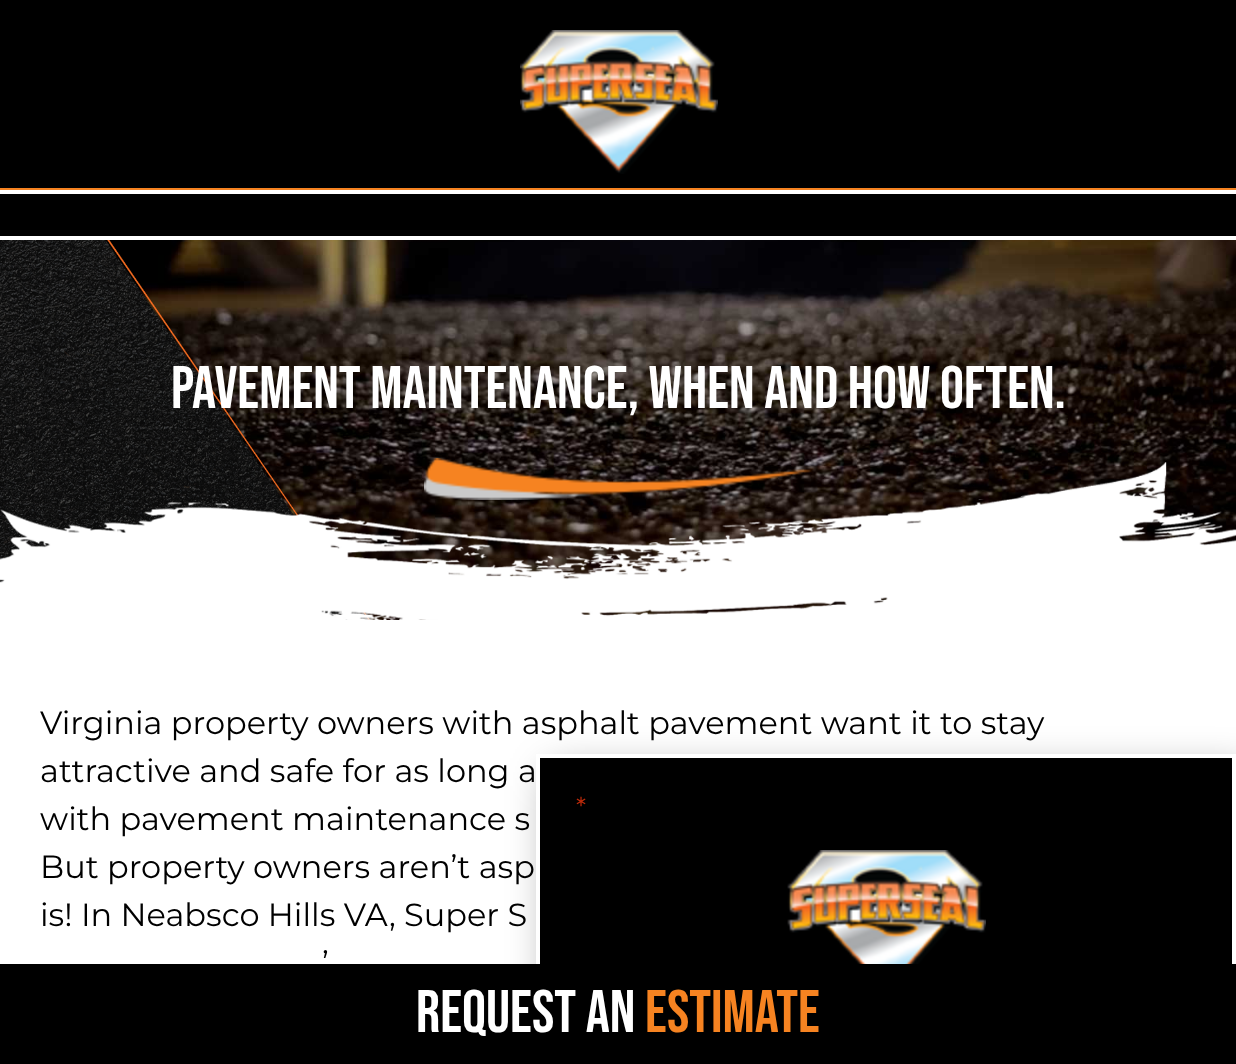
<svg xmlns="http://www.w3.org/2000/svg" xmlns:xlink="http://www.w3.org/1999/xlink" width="1236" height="1064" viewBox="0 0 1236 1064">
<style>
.cls-1{font:60px Bebas Neue;fill:#ffffff}
.cls-2{font:32px Montserrat;fill:#000000}
.cls-3{font:26px Montserrat;fill:#c02b0a}
.cls-4{font:60px Bebas Neue;fill:#f68321}
</style>
<rect width="100%" height="100%" fill="#ffffff"/>
<rect fill="#000000" x="0" y="0" width="1236" height="188"/>
<rect fill="#f68321" x="0" y="188" width="1236" height="2"/>
<image xlink:href="image0.png" x="520" y="30" width="198" height="144"/>
<rect fill="#000000" x="0" y="194" width="1236" height="42"/>
<image xlink:href="image1.png" x="0" y="240" width="1236" height="380"/>
<image xlink:href="image2.png" x="424" y="458" width="390" height="42"/>
<rect fill="#000000" fill-opacity="0.4" filter="blur(20px)" x="550" y="772" width="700" height="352"/>
<rect fill="#000000" x="540" y="758" width="692" height="206"/>
<rect fill="none" stroke="#ffffff" stroke-width="4" x="538" y="756" width="696" height="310"/>
<image xlink:href="image3.png" x="787" y="850" width="199" height="114"/>
<rect fill="#000000" x="0" y="964" width="1236" height="100"/>
<text class="cls-1" x="171" y="408">Pavement Maintenance, When and how often.</text>
<text class="cls-2"><tspan x="40" y="734">Virginia property owners with asphalt pavement want it to stay</tspan><tspan x="40" y="782">attractive and safe for as long a</tspan><tspan x="40" y="830">with pavement maintenance s</tspan><tspan x="40" y="878">But property owners aren’t asp</tspan><tspan x="40" y="926">is! In Neabsco Hills VA, Super S</tspan></text>
<text class="cls-2" x="322" y="974">’</text>
<text class="cls-3" x="576" y="816">*</text>
<text class="cls-1" x="416" y="1032">REQUEST AN</text>
<text class="cls-4" x="645" y="1032">ESTIMATE</text>
</svg>
